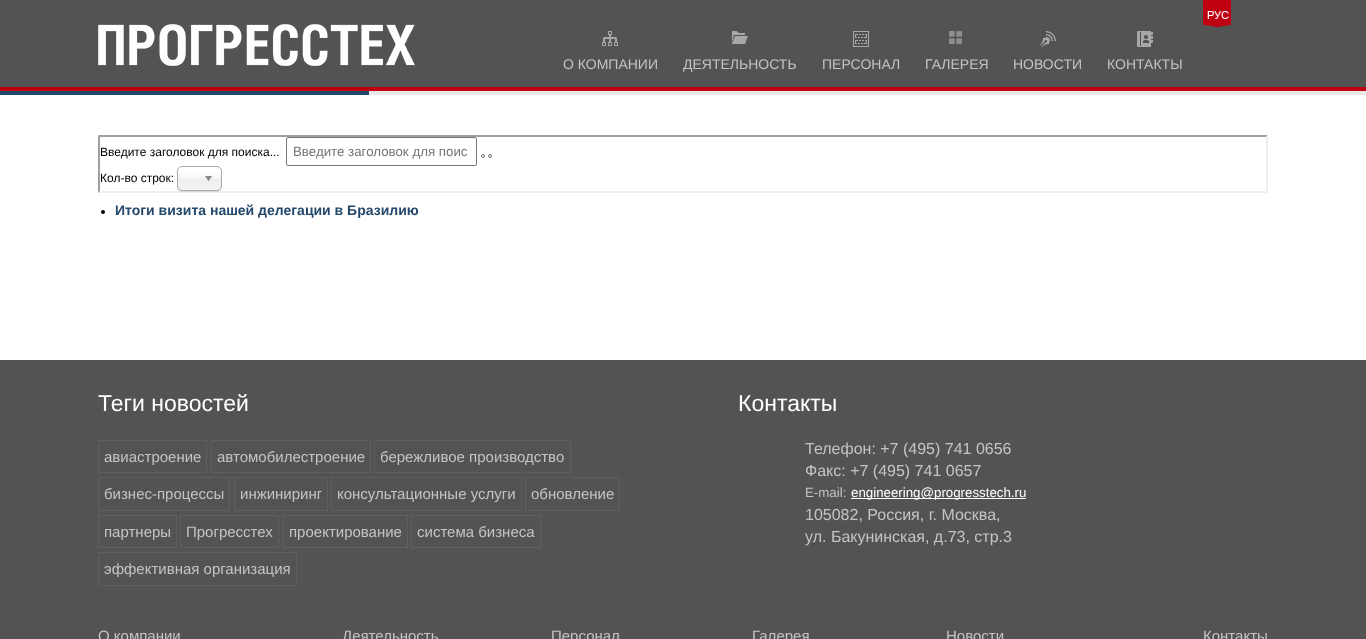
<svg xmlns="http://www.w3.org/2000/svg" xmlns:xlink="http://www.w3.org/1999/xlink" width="1366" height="639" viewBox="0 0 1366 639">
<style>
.cls-1{font:14px Liberation Sans;fill:#c3c4c6}
.cls-2{font:12px Liberation Sans;fill:#000000}
.cls-3{font:13.3px Liberation Sans;fill:#757575}
.cls-4{font:bold 14px Liberation Sans;fill:#24486c}
.cls-5{font:23px Liberation Sans;fill:#ffffff}
.cls-6{font:15px Liberation Sans;fill:#c3c4c6}
.cls-7{font:16px Liberation Sans;fill:#c3c4c6}
.cls-8{font:13.3px Liberation Sans;fill:#c3c4c6}
.cls-9{font:13.3px Liberation Sans;fill:#ffffff}
</style>
<defs>
<linearGradient id="g1" gradientUnits="userSpaceOnUse" x1="200" y1="167" x2="200" y2="190"><stop offset="0.2" stop-color="#ffffff"/><stop offset="0.5" stop-color="#f6f6f6"/><stop offset="0.52" stop-color="#eeeeee"/><stop offset="1" stop-color="#f4f4f4"/></linearGradient>
</defs>
<rect width="100%" height="100%" fill="#ffffff"/>
<rect fill="#535353" x="0" y="0" width="1366" height="87"/>
<rect fill="#bf0010" x="0" y="87" width="1366" height="4"/>
<image xlink:href="image0.png" x="1203" y="0" width="28" height="27"/>
<image xlink:href="image1.png" x="98" y="24" width="317" height="42"/>
<image xlink:href="image2.png" x="602" y="31" width="16" height="15"/>
<image xlink:href="image3.png" x="732" y="31" width="16" height="13"/>
<image xlink:href="image4.png" x="853" y="31" width="16" height="16"/>
<image xlink:href="image5.png" x="949" y="31" width="13" height="13"/>
<image xlink:href="image6.png" x="1040" y="31" width="16" height="16"/>
<image xlink:href="image7.png" x="1137" y="31" width="16" height="16"/>
<rect fill="#24486c" x="0" y="91" width="369" height="4"/>
<rect fill="#e8e8e8" x="369" y="91" width="997" height="4"/>
<path fill="#9f9f9f" d="M98 135H1268L1266 137H100Z"/>
<path fill="#efefef" d="M1268 135V193L1266 191V137Z"/>
<path fill="#efefef" d="M1268 193H98L100 191H1266Z"/>
<path fill="#9f9f9f" d="M98 193V135L100 137V191Z"/>
<rect fill="none" stroke="#767676" x="286.5" y="137.5" width="190" height="28" rx="1.5"/>
<circle fill="#efefef" stroke="#767676" cx="483" cy="156" r="1.5"/>
<circle fill="#efefef" stroke="#767676" cx="490" cy="156" r="1.5"/>
<rect fill="#000000" fill-opacity="0.1" filter="blur(0.5px)" x="177" y="167" width="45" height="25" rx="5"/>
<rect fill="url(#g1)" x="178" y="167" width="43" height="23" rx="4"/>
<rect fill="none" stroke="#aaaaaa" x="177.5" y="166.5" width="44" height="24" rx="4.5"/>
<image xlink:href="image8.png" x="205" y="176" width="7" height="6"/>
<circle fill="#000000" cx="103" cy="212" r="2"/>
<rect fill="#535353" x="0" y="360" width="1366" height="279"/>
<rect fill="none" stroke="#5f5f5e" x="98.5" y="440.5" width="108" height="32"/>
<rect fill="none" stroke="#5f5f5e" x="211.5" y="440.5" width="159" height="32"/>
<rect fill="none" stroke="#5f5f5e" x="374.5" y="440.5" width="196" height="32"/>
<rect fill="none" stroke="#5f5f5e" x="98.5" y="477.5" width="131" height="33"/>
<rect fill="none" stroke="#5f5f5e" x="234.5" y="477.5" width="93" height="33"/>
<rect fill="none" stroke="#5f5f5e" x="331.5" y="477.5" width="190" height="33"/>
<rect fill="none" stroke="#5f5f5e" x="525.5" y="477.5" width="94" height="33"/>
<rect fill="none" stroke="#5f5f5e" x="98.5" y="515.5" width="78" height="32"/>
<rect fill="none" stroke="#5f5f5e" x="180.5" y="515.5" width="98" height="32"/>
<rect fill="none" stroke="#5f5f5e" x="283.5" y="515.5" width="124" height="32"/>
<rect fill="none" stroke="#5f5f5e" x="411.5" y="515.5" width="129" height="32"/>
<rect fill="none" stroke="#5f5f5e" x="98.5" y="552.5" width="198" height="33"/>
<rect fill="#ffffff" x="851" y="498" width="175" height="1"/>
<text class="cls-1" x="563" y="69">О КОМПАНИИ</text>
<text class="cls-1" x="683" y="69">ДЕЯТЕЛЬНОСТЬ</text>
<text class="cls-1" x="822" y="69">ПЕРСОНАЛ</text>
<text class="cls-1" x="925" y="69">ГАЛЕРЕЯ</text>
<text class="cls-1" x="1013" y="69">НОВОСТИ</text>
<text class="cls-1" x="1107" y="69">КОНТАКТЫ</text>
<text class="cls-2" x="100" y="156">Введите заголовок для поиска...</text>
<text class="cls-3" x="293" y="156">Введите заголовок для поис</text>
<text class="cls-2" x="100" y="182">Кол-во строк:</text>
<text class="cls-4" x="115" y="215">Итоги визита нашей делегации в Бразилию</text>
<text class="cls-5" x="98" y="411">Теги новостей</text>
<text class="cls-6" x="104" y="462">авиастроение</text>
<text class="cls-6" x="217" y="462">автомобилестроение</text>
<text class="cls-6" x="380" y="462">бережливое производство</text>
<text class="cls-6" x="104" y="499">бизнес-процессы</text>
<text class="cls-6" x="240" y="499">инжиниринг</text>
<text class="cls-6" x="337" y="499">консультационные услуги</text>
<text class="cls-6" x="531" y="499">обновление</text>
<text class="cls-6" x="104" y="537">партнеры</text>
<text class="cls-6" x="186" y="537">Прогресстех</text>
<text class="cls-6" x="289" y="537">проектирование</text>
<text class="cls-6" x="417" y="537">система бизнеса</text>
<text class="cls-6" x="104" y="574">эффективная организация</text>
<text class="cls-5" x="738" y="411">Контакты</text>
<text class="cls-7"><tspan x="805" y="454">Телефон: +7 (495) 741 0656</tspan><tspan x="805" y="476">Факс: +7 (495) 741 0657</tspan></text>
<text class="cls-8" x="805" y="497">E-mail:</text>
<text class="cls-9" x="851" y="497">engineering@progresstech.ru</text>
<text class="cls-7"><tspan x="805" y="520">105082, Россия, г. Москва,</tspan><tspan x="805" y="542">ул. Бакунинская, д.73, стр.3</tspan></text>
<text class="cls-6" x="98" y="641">О компании</text>
<text class="cls-6" x="342" y="641">Деятельность</text>
<text class="cls-6" x="551" y="641">Персонал</text>
<text class="cls-6" x="752" y="641">Галерея</text>
<text class="cls-6" x="946" y="641">Новости</text>
<text class="cls-6" x="1203" y="641">Контакты</text>
</svg>
